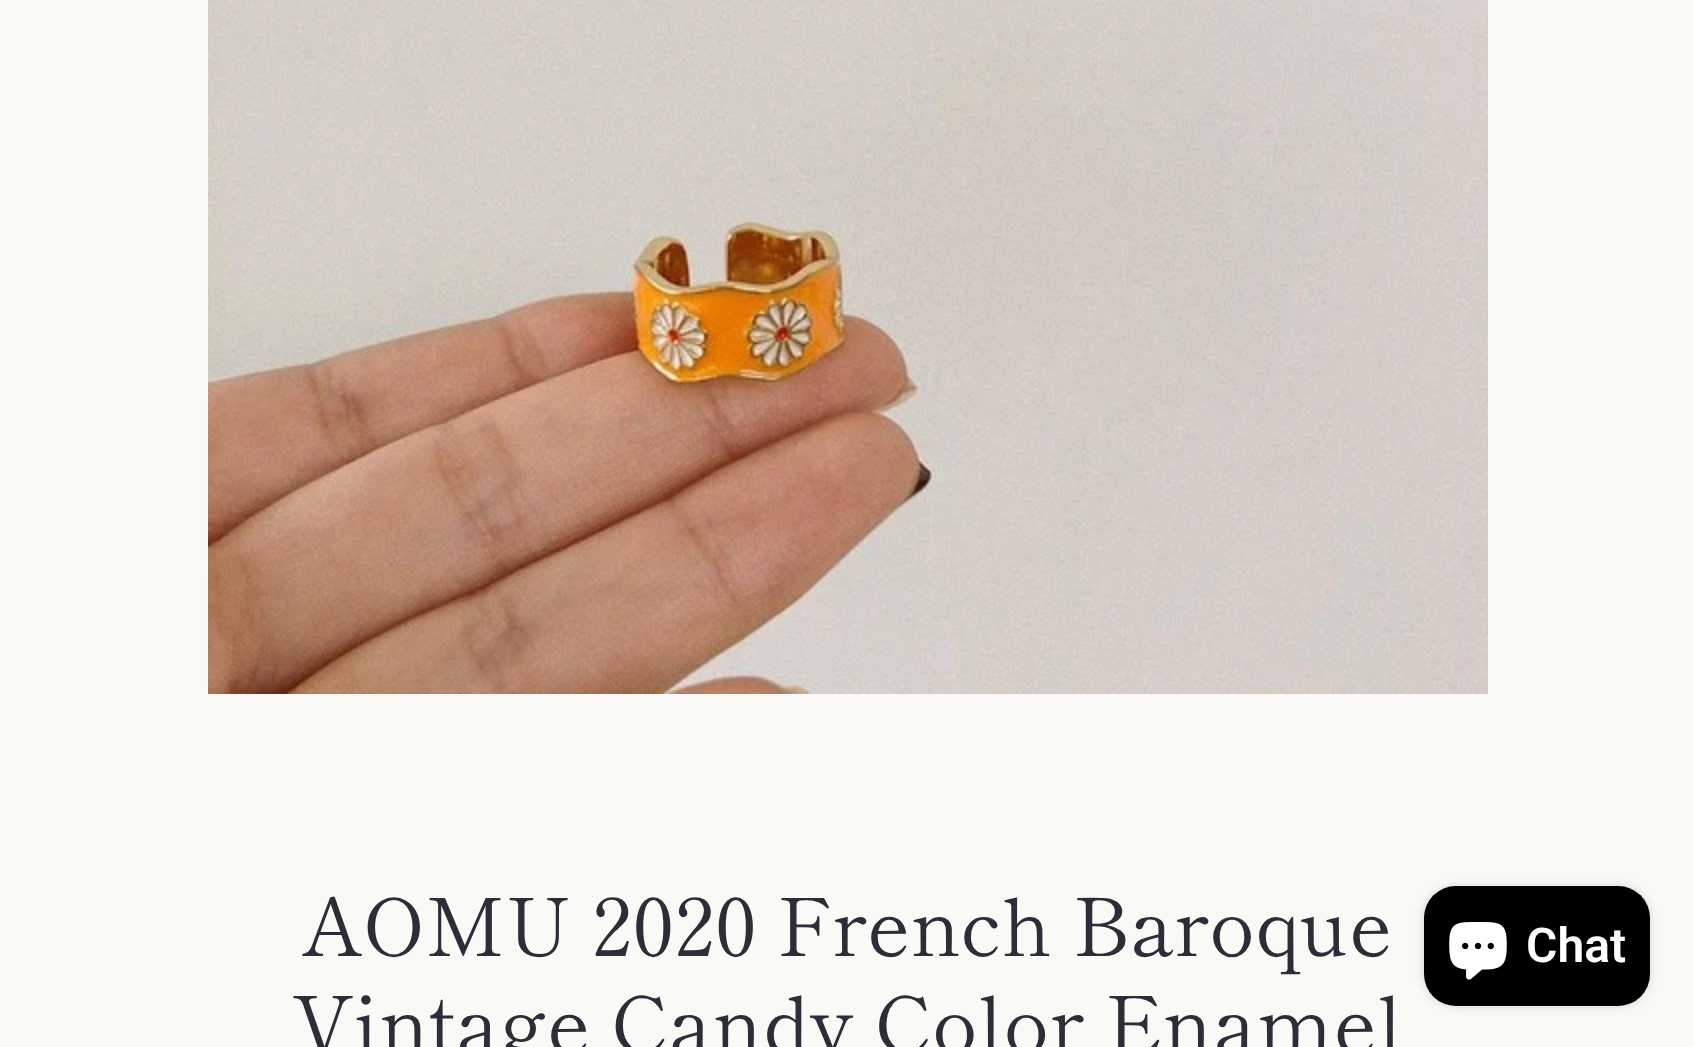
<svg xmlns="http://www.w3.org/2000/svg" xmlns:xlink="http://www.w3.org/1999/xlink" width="1693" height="1047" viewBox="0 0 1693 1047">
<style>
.cls-1{font:80px Shippori Mincho;fill:#2c2d38}
.cls-2{font:600 48px Roboto;fill:#ffffff}
</style>
<rect width="100%" height="100%" fill="#faf9f6"/>
<image xlink:href="image0.png" x="208" y="0" width="1280" height="694"/>
<rect fill="#000000" fill-opacity="0.15" filter="blur(5px)" x="1424" y="886" width="226" height="120" rx="32"/>
<rect fill="#000000" x="1424" y="886" width="226" height="120" rx="32"/>
<image xlink:href="image1.png" x="1449" y="922" width="58" height="58"/>
<text class="cls-1" x="302" y="956">AOMU 2020 French Baroque</text>
<text class="cls-1" x="292" y="1054">Vintage Candy Color Enamel</text>
<text class="cls-2" x="1526" y="962">Chat</text>
</svg>
